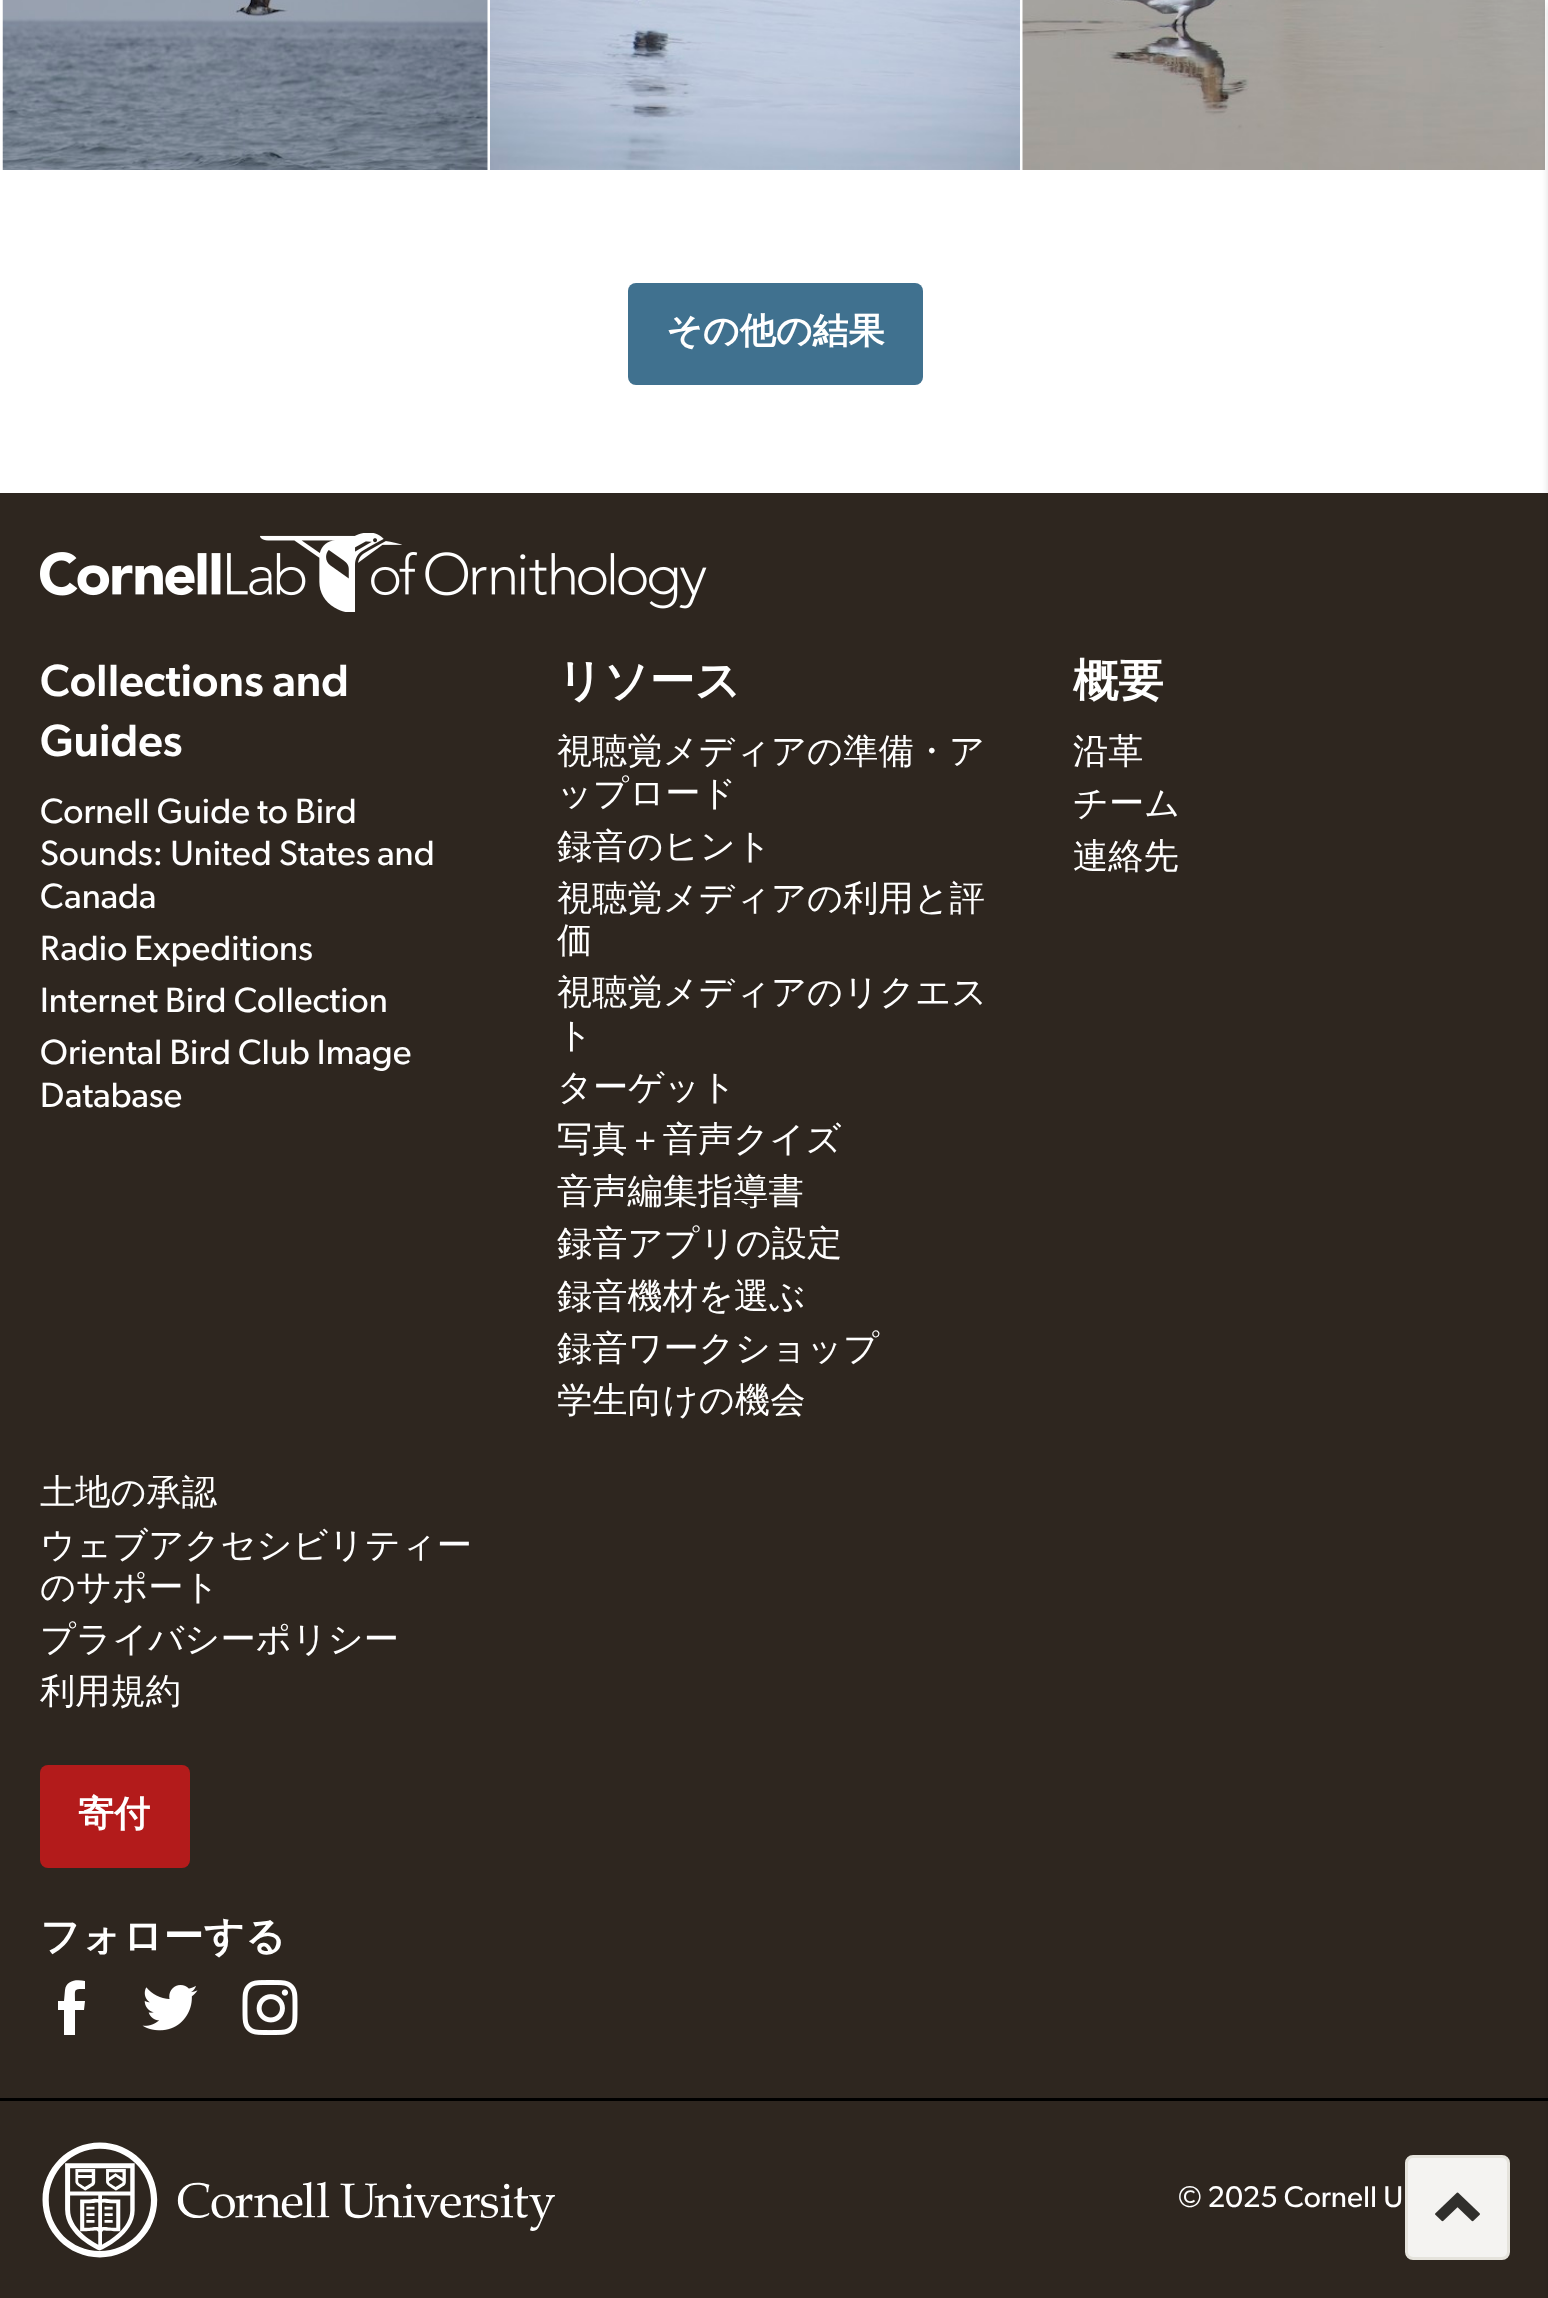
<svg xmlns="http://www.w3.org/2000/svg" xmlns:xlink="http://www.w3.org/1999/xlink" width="1548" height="2298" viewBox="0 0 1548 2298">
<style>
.cls-1{font:bold 36px WenQuanYi Zen Hei;fill:#ffffff}
.cls-2{font:500 45.25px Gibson;fill:#ffffff}
.cls-3{font:35.25px Gibson;fill:#ffffff}
.cls-4{font:bold 45.25px WenQuanYi Zen Hei;fill:#ffffff}
.cls-5{font:500 35.25px WenQuanYi Zen Hei;fill:#ffffff}
.cls-6{font:bold 40px WenQuanYi Zen Hei;letter-spacing:0.25px;fill:#ffffff}
.cls-7{font:30px Gibson;fill:#ffffff}
</style>
<rect width="100%" height="100%" fill="#ffffff"/>
<image xlink:href="image0.png" x="2" y="0" width="486" height="170"/>
<image xlink:href="image1.png" x="490" y="0" width="530" height="170"/>
<image xlink:href="image2.png" x="1022" y="0" width="523" height="170"/>
<rect fill="#40718f" x="628" y="283" width="295" height="102" rx="8"/>
<rect fill="#2e261f" x="0" y="493" width="1548" height="1805"/>
<rect fill="#000000" x="0" y="2098" width="1548" height="3"/>
<rect fill="#000000" fill-opacity="0.2" filter="blur(5px)" x="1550" y="5" width="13" height="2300"/>
<image xlink:href="image3.png" x="40" y="533" width="667" height="79"/>
<rect fill="#b31b1b" x="40" y="1765" width="150" height="103" rx="8"/>
<path fill="#ffffff" fill-rule="evenodd" d="M64 2035V2010H58V2001H64L65 1990C66 1980 77 1979 85 1981V1989C73 1989 75 1989 75 2001H85L84 2010H75V2035Z"/>
<image xlink:href="image4.png" x="142" y="1985" width="56" height="46"/>
<image xlink:href="image5.png" x="242" y="1980" width="56" height="55"/>
<image xlink:href="image6.png" x="42" y="2142" width="513" height="116"/>
<rect fill="#f4f3f1" stroke="#e5e3dc" stroke-width="3" x="1406.5" y="2156.5" width="102" height="102" rx="6.5"/>
<image xlink:href="image7.png" x="1435" y="2192" width="45" height="30"/>
<text class="cls-1" x="666" y="343">その他の結果</text>
<text class="cls-2"><tspan x="40" y="696">Collections and</tspan><tspan x="40" y="756">Guides</tspan></text>
<text class="cls-3"><tspan x="40" y="823">Cornell Guide to Bird</tspan><tspan x="40" y="865">Sounds: United States and</tspan><tspan x="40" y="908">Canada</tspan><tspan x="40" y="960">Radio Expeditions</tspan><tspan x="40" y="1012">Internet Bird Collection</tspan><tspan x="40" y="1064">Oriental Bird Club Image</tspan><tspan x="40" y="1107">Database</tspan></text>
<text class="cls-4" x="557" y="696">リソース</text>
<text class="cls-5"><tspan x="557" y="763">視聴覚メディアの準備・ア</tspan><tspan x="557" y="805">ップロード</tspan><tspan x="557" y="858">録音のヒント</tspan><tspan x="557" y="910">視聴覚メディアの利用と評</tspan><tspan x="557" y="952">価</tspan><tspan x="557" y="1004">視聴覚メディアのリクエス</tspan><tspan x="557" y="1047">ト</tspan><tspan x="557" y="1099">ターゲット</tspan><tspan x="557" y="1151">写真＋音声クイズ</tspan><tspan x="557" y="1203">音声編集指導書</tspan><tspan x="557" y="1255">録音アプリの設定</tspan><tspan x="557" y="1308">録音機材を選ぶ</tspan><tspan x="557" y="1360">録音ワークショップ</tspan><tspan x="557" y="1412">学生向けの機会</tspan></text>
<text class="cls-4" x="1073" y="696">概要</text>
<text class="cls-5"><tspan x="1073" y="763">沿革</tspan><tspan x="1073" y="815">チーム</tspan><tspan x="1073" y="868">連絡先</tspan></text>
<text class="cls-5"><tspan x="40" y="1504">土地の承認</tspan><tspan x="40" y="1557">ウェブアクセシビリティー</tspan><tspan x="40" y="1599">のサポート</tspan><tspan x="40" y="1651">プライバシーポリシー</tspan><tspan x="40" y="1703">利用規約</tspan></text>
<text class="cls-1" x="78" y="1826">寄付</text>
<text class="cls-6" x="40" y="1950">フォローする</text>
<text class="cls-7" x="1178" y="2207">© 2025 Cornell U</text>
</svg>
